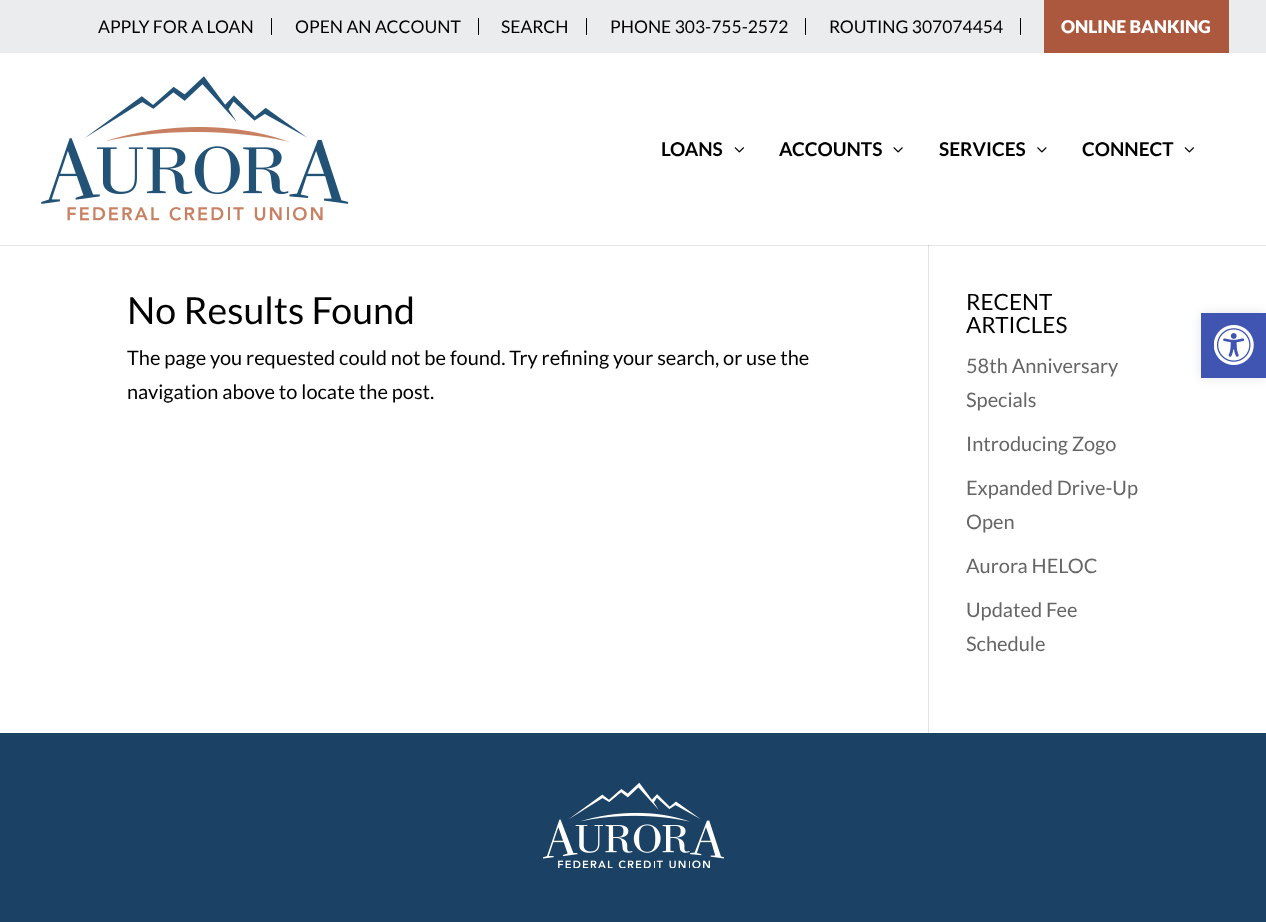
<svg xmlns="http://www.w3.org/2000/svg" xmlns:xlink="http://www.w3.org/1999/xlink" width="1266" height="922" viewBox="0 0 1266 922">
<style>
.cls-1{font:17.5px Lato;fill:#000000}
.cls-2{font:900 17.5px Lato;fill:#ffffff}
.cls-3{font:bold 19px Lato;fill:#000000}
.cls-4{font:37.5px Lato;fill:#000000}
.cls-5{font:20px Lato;fill:#000000}
.cls-6{font:22.5px Lato;fill:#000000}
.cls-7{font:20px Lato;fill:#666666}
</style>
<rect width="100%" height="100%" fill="#ffffff"/>
<rect fill="#e6e6e6" x="0" y="245" width="1266" height="1"/>
<rect fill="#ebeced" x="0" y="0" width="1266" height="53"/>
<rect fill="#000000" x="271" y="18" width="1" height="17"/>
<rect fill="#000000" x="478" y="18" width="1" height="17"/>
<rect fill="#000000" x="586" y="18" width="1" height="17"/>
<rect fill="#000000" x="805" y="18" width="1" height="17"/>
<rect fill="#000000" x="1020" y="18" width="1" height="17"/>
<rect fill="#ac583f" x="1044" y="0" width="185" height="53"/>
<image xlink:href="image0.png" x="41" y="76" width="308" height="145"/>
<image xlink:href="image1.png" x="734" y="147" width="10" height="6"/>
<image xlink:href="image2.png" x="893" y="147" width="10" height="6"/>
<image xlink:href="image3.png" x="1037" y="147" width="10" height="6"/>
<image xlink:href="image1.png" x="1184" y="147" width="10" height="6"/>
<rect fill="#e2e2e2" x="928" y="246" width="1" height="487"/>
<rect fill="#cbcbcb" x="928" y="245" width="1" height="1"/>
<rect fill="#1b4164" x="0" y="733" width="1266" height="189"/>
<image xlink:href="image4.png" x="543" y="783" width="181" height="85"/>
<rect fill="#000000" fill-opacity="0.1" filter="blur(6px)" x="1201" y="313" width="65" height="65"/>
<rect fill="#4054b2" x="1201" y="313" width="65" height="65"/>
<image xlink:href="image5.png" x="1214" y="325" width="40" height="40"/>
<text class="cls-1" x="98" y="33">APPLY FOR A LOAN</text>
<text class="cls-1" x="295" y="33">OPEN AN ACCOUNT</text>
<text class="cls-1" x="501" y="33">SEARCH</text>
<text class="cls-1" x="610" y="33">PHONE 303-755-2572</text>
<text class="cls-1" x="829" y="33">ROUTING 307074454</text>
<text class="cls-2" x="1061" y="33">ONLINE BANKING</text>
<text class="cls-3" x="661" y="156">LOANS</text>
<text class="cls-3" x="779" y="156">ACCOUNTS</text>
<text class="cls-3" x="939" y="156">SERVICES</text>
<text class="cls-3" x="1082" y="156">CONNECT</text>
<text class="cls-4" x="127" y="324">No Results Found</text>
<text class="cls-5"><tspan x="127" y="365">The page you requested could not be found. Try refining your search, or use the</tspan><tspan x="127" y="399">navigation above to locate the post.</tspan></text>
<text class="cls-6"><tspan x="966" y="310">RECENT</tspan><tspan x="966" y="333">ARTICLES</tspan></text>
<text class="cls-7"><tspan x="966" y="373">58th Anniversary</tspan><tspan x="966" y="407">Specials</tspan></text>
<text class="cls-7" x="966" y="451">Introducing Zogo</text>
<text class="cls-7"><tspan x="966" y="495">Expanded Drive-Up</tspan><tspan x="966" y="529">Open</tspan></text>
<text class="cls-7" x="966" y="573">Aurora HELOC</text>
<text class="cls-7"><tspan x="966" y="617">Updated Fee</tspan><tspan x="966" y="651">Schedule</tspan></text>
</svg>
